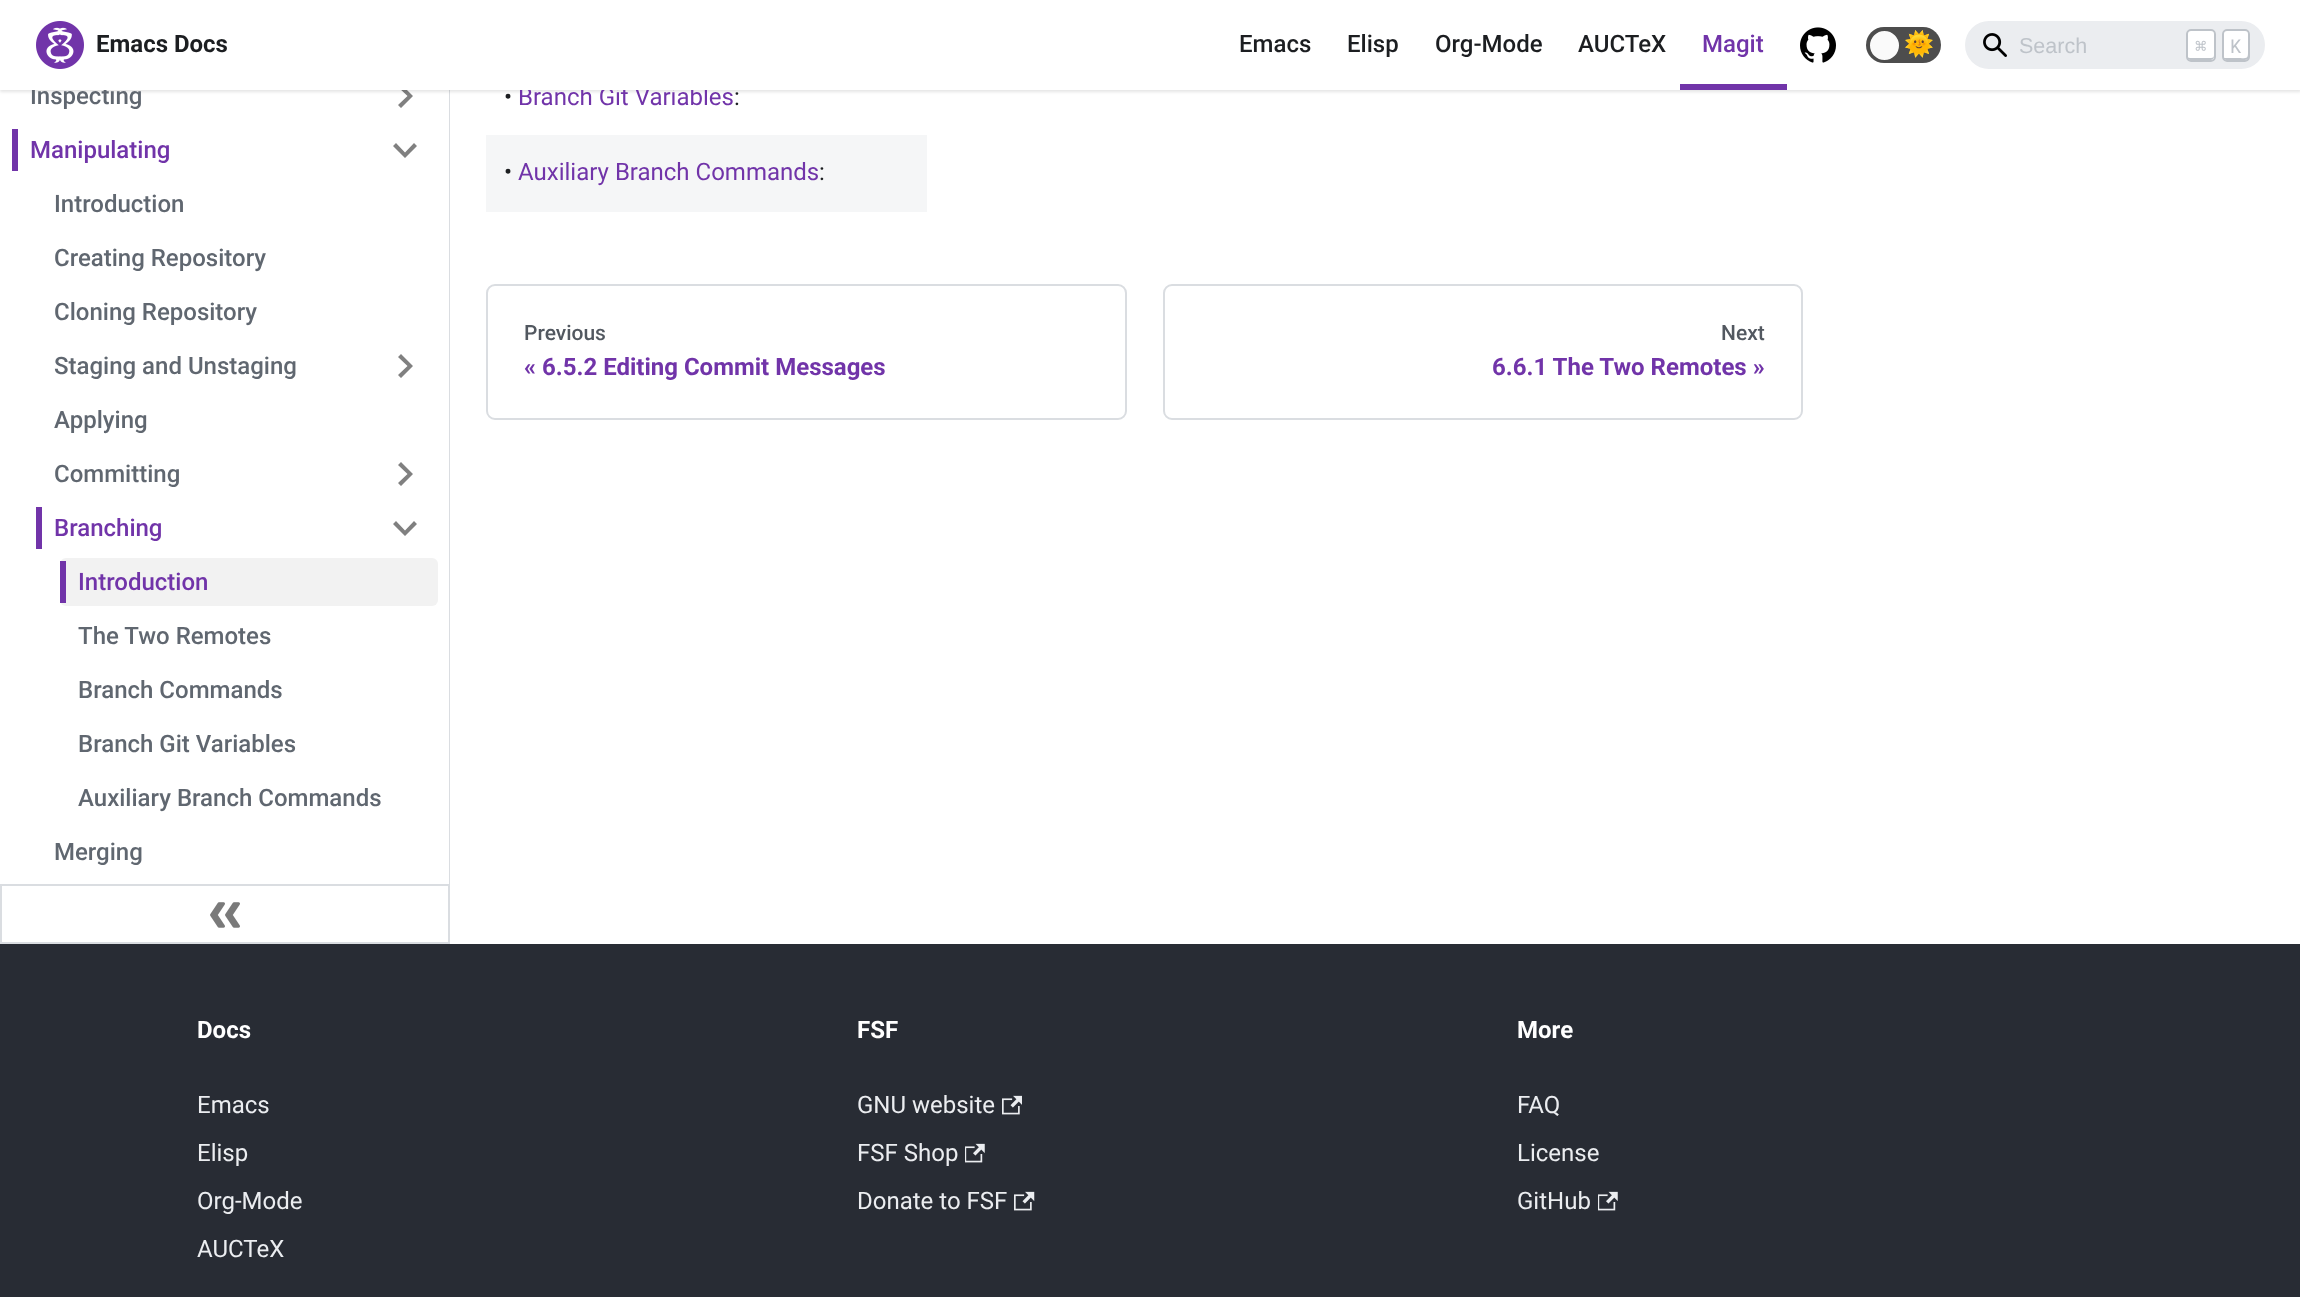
<svg xmlns="http://www.w3.org/2000/svg" xmlns:xlink="http://www.w3.org/1999/xlink" width="2300" height="1297" viewBox="0 0 2300 1297">
<style>
.cls-1{font:500 24px Roboto;fill:#606770}
.cls-2{font:500 24px Roboto;fill:#7134a9}
.cls-3{font:24px Roboto;fill:#1c1e21}
.cls-4{font:24px Roboto;fill:#7134a9}
.cls-5{font:19px Roboto Mono;fill:#bec3c9}
.cls-6{font:19px DejaVu Sans Mono;fill:#bec3c9}
.cls-7{font:21.5px Liberation Sans;fill:#bec3c9}
.cls-8{font:24px Noto Color Emoji;fill:#1c1e21}
.cls-9{font:bold 24px Roboto;fill:#1c1e21}
.cls-10{font:500 24px Roboto;fill:#1c1e21}
.cls-11{font:500 21px Roboto;fill:#525860}
.cls-12{font:bold 24px Roboto;fill:#7134a9}
.cls-13{font:bold 24px Roboto;fill:#ffffff}
.cls-14{font:24px Roboto;fill:#ebedf0}
</style>
<rect width="100%" height="100%" fill="#ffffff"/>
<rect fill="#dadde1" x="449" y="90" width="1" height="794"/>
<path fill="#808080" d="M398 87L407.5 96L398 105L401 108L413 96L401 84Z"/>
<rect fill="#000000" fill-opacity="0.1" filter="blur(1.5px)" x="0" y="2" width="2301" height="90"/>
<rect fill="#7134a9" x="12" y="129" width="6" height="42"/>
<path fill="#808080" d="M414 143L405 152.5L396 143L393 146L405 158L417 146Z"/>
<path fill="#808080" d="M398 357L407.5 366L398 375L401 378L413 366L401 354Z"/>
<path fill="#808080" d="M398 465L407.5 474L398 483L401 486L413 474L401 462Z"/>
<rect fill="#7134a9" x="36" y="507" width="6" height="42"/>
<path fill="#808080" d="M414 521L405 530.5L396 521L393 524L405 536L417 524Z"/>
<rect fill="#f2f2f2" x="60" y="558" width="378" height="48" rx="6"/>
<rect fill="#7134a9" x="60" y="561" width="6" height="42"/>
<rect fill="none" stroke="#dadde1" stroke-width="2" x="1" y="885" width="448" height="58"/>
<image xlink:href="image3.png" x="210" y="902" width="30" height="26"/>
<rect fill="#f5f6f7" x="486" y="135" width="441" height="77"/>
<rect fill="none" stroke="#dadde1" stroke-width="2" x="487" y="285" width="639" height="134" rx="8"/>
<rect fill="none" stroke="#dadde1" stroke-width="2" x="1164" y="285" width="638" height="134" rx="8"/>
<rect fill="#282c34" x="0" y="944" width="2300" height="353"/>
<image xlink:href="image4.png" x="1002" y="1095" width="20" height="20"/>
<image xlink:href="image5.png" x="965" y="1143" width="20" height="20"/>
<image xlink:href="image6.png" x="1014" y="1191" width="21" height="20"/>
<image xlink:href="image5.png" x="1598" y="1191" width="20" height="20"/>
<text class="cls-1" x="30" y="104">Inspecting</text>
<text class="cls-2" x="30" y="158">Manipulating</text>
<text class="cls-1" x="54" y="212">Introduction</text>
<text class="cls-1" x="54" y="266">Creating Repository</text>
<text class="cls-1" x="54" y="320">Cloning Repository</text>
<text class="cls-1" x="54" y="374">Staging and Unstaging</text>
<text class="cls-1" x="54" y="428">Applying</text>
<text class="cls-1" x="54" y="482">Committing</text>
<text class="cls-2" x="54" y="536">Branching</text>
<text class="cls-2" x="78" y="590">Introduction</text>
<text class="cls-1" x="78" y="644">The Two Remotes</text>
<text class="cls-1" x="78" y="698">Branch Commands</text>
<text class="cls-1" x="78" y="752">Branch Git Variables</text>
<text class="cls-1" x="78" y="806">Auxiliary Branch Commands</text>
<text class="cls-1" x="54" y="860">Merging</text>
<text class="cls-3" x="504" y="105">•</text>
<text class="cls-4" x="518" y="105">Branch Git Variables</text>
<rect fill="#ffffff" x="0" y="0" width="2300" height="90"/>
<rect fill="#ebedf0" x="1965" y="21" width="300" height="48" rx="24"/>
<rect fill="#ffffff" x="2222" y="29" width="28" height="33" rx="5"/>
<path fill="#bec3c9" d="M2223 55C2223 60 2224.5 60 2229.5 60H2236C2252 60 2249 61.5 2249 45V37C2249 35 2249.5 32 2248 30.5V47.5C2248 60.5 2249 58 2235.5 58H2224.5C2223.5 57.5 2223 56 2223 55Z"/>
<rect fill="none" stroke="#bec3c9" stroke-width="2" x="2223" y="30" width="26" height="31" rx="4"/>
<text class="cls-5" x="2230" y="53">K</text>
<rect fill="#ffffff" x="2186" y="29" width="30" height="33" rx="5"/>
<path fill="#bec3c9" d="M2187 55C2187 60 2188.5 60 2193.5 60H2207.5C2212.5 60 2214 60 2214 55C2214 57 2213 58 2211 58H2190C2188 58 2187 57 2187 55Z"/>
<rect fill="none" stroke="#bec3c9" stroke-width="2" x="2187" y="30" width="28" height="31" rx="4"/>
<text class="cls-6" x="2195" y="53">⌘</text>
<text class="cls-7" x="2019" y="53">Search</text>
<image xlink:href="image2.png" x="1983" y="33" width="24" height="24"/>
<rect fill="#4d4d4d" x="1866" y="27" width="75" height="36" rx="18"/>
<circle fill="#fafafa" stroke="#4d4d4d" stroke-width="2" cx="1884.5" cy="45.5" r="15.5"/>
<text class="cls-8" x="1904" y="52">🌞</text>
<rect fill="#7134a9" x="1680" y="84" width="107" height="6"/>
<text class="cls-9" x="96" y="52">Emacs Docs</text>
<image xlink:href="image1.png" x="1800" y="27" width="36" height="36"/>
<text class="cls-2" x="1702" y="52">Magit</text>
<text class="cls-10" x="1578" y="52">AUCTeX</text>
<text class="cls-10" x="1435" y="52">Org-Mode</text>
<text class="cls-10" x="1347" y="52">Elisp</text>
<text class="cls-10" x="1239" y="52">Emacs</text>
<image xlink:href="image0.png" x="36" y="21" width="48" height="48"/>
<text class="cls-3" x="734" y="105">:</text>
<text class="cls-3" x="504" y="180">•</text>
<text class="cls-4" x="518" y="180">Auxiliary Branch Commands</text>
<text class="cls-3" x="819" y="180">:</text>
<text class="cls-11" x="524" y="340">Previous</text>
<text class="cls-12" x="524" y="375">« 6.5.2 Editing Commit Messages</text>
<text class="cls-11" x="1721" y="340">Next</text>
<text class="cls-12" x="1492" y="375">6.6.1 The Two Remotes »</text>
<text class="cls-13" x="197" y="1038">Docs</text>
<text class="cls-14" x="197" y="1113">Emacs</text>
<text class="cls-14" x="197" y="1161">Elisp</text>
<text class="cls-14" x="197" y="1209">Org-Mode</text>
<text class="cls-14" x="197" y="1257">AUCTeX</text>
<text class="cls-13" x="857" y="1038">FSF</text>
<text class="cls-14" x="857" y="1113">GNU website</text>
<text class="cls-14" x="857" y="1161">FSF Shop</text>
<text class="cls-14" x="857" y="1209">Donate to FSF</text>
<text class="cls-13" x="1517" y="1038">More</text>
<text class="cls-14" x="1517" y="1113">FAQ</text>
<text class="cls-14" x="1517" y="1161">License</text>
<text class="cls-14" x="1517" y="1209">GitHub</text>
</svg>
